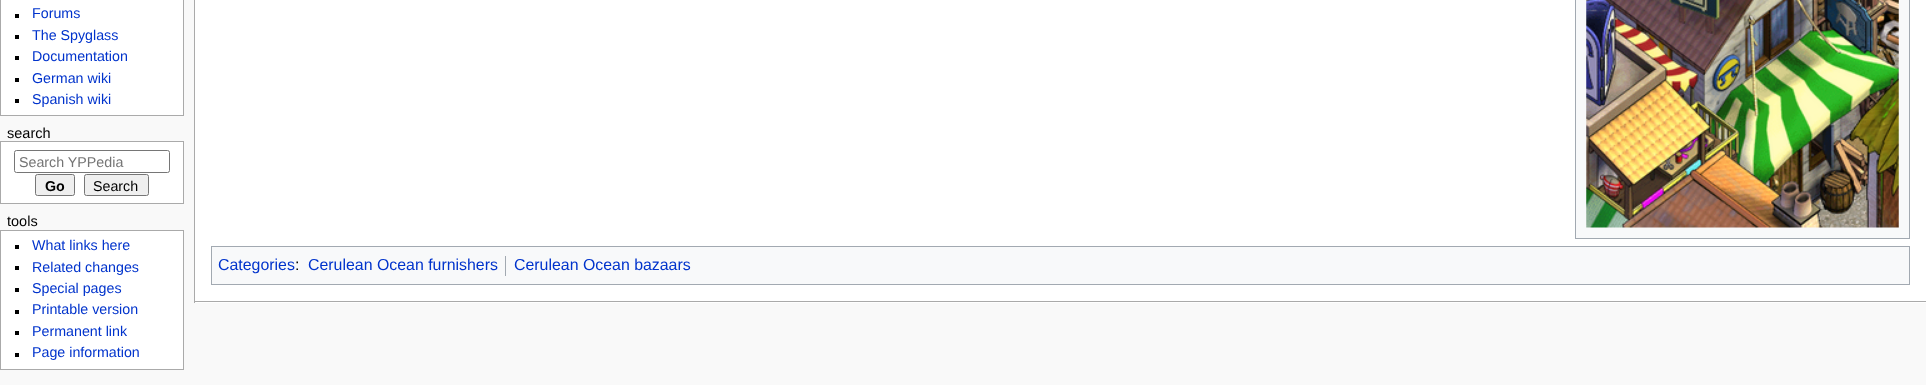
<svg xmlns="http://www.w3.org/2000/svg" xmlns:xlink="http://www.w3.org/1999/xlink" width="1926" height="385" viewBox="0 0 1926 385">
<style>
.cls-1{font:14.25px Liberation Sans;fill:#0033cc}
.cls-2{font:14.5px Liberation Sans;fill:#000000}
.cls-3{font:14.25px Liberation Sans;fill:#757575}
.cls-4{font:bold 14.25px Liberation Sans;fill:#000000}
.cls-5{font:14.25px Liberation Sans;fill:#000000}
.cls-6{font:15.9px Liberation Sans;fill:#0033cc}
.cls-7{font:15.9px Liberation Sans;fill:#000000}
</style>
<rect width="100%" height="100%" fill="#f9f9f9"/>
<rect fill="#ffffff" stroke="#aaaaaa" x="0.5" y="-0.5" width="183" height="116"/>
<rect fill="#000000" x="15" y="14" width="4" height="4"/>
<rect fill="#000000" x="15" y="35" width="4" height="4"/>
<rect fill="#000000" x="15" y="56" width="4" height="4"/>
<rect fill="#000000" x="15" y="78" width="4" height="4"/>
<rect fill="#000000" x="15" y="99" width="4" height="4"/>
<rect fill="#ffffff" stroke="#aaaaaa" x="0.5" y="141.5" width="183" height="62"/>
<rect fill="none" stroke="#767676" x="14.5" y="150.5" width="155" height="22" rx="2"/>
<rect fill="#efefef" stroke="#767676" x="35.5" y="174.5" width="39" height="21" rx="2"/>
<rect fill="#efefef" stroke="#767676" x="84.5" y="174.5" width="64" height="21" rx="2"/>
<rect fill="#ffffff" stroke="#aaaaaa" x="0.5" y="230.5" width="183" height="139"/>
<rect fill="#000000" x="15" y="245" width="4" height="4"/>
<rect fill="#000000" x="15" y="266" width="4" height="4"/>
<rect fill="#000000" x="15" y="288" width="4" height="4"/>
<rect fill="#000000" x="15" y="310" width="4" height="4"/>
<rect fill="#000000" x="15" y="331" width="4" height="4"/>
<rect fill="#000000" x="15" y="353" width="4" height="4"/>
<rect fill="#ffffff" x="195" y="0" width="1731" height="303"/>
<rect fill="#aaaaaa" x="194" y="301" width="1732" height="1"/>
<rect fill="#aaaaaa" x="194" y="0" width="1" height="303"/>
<rect fill="#f8f9fa" stroke="#a2a9b1" x="1575.5" y="-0.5" width="334" height="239"/>
<image xlink:href="image0.png" x="1586" y="0" width="313" height="228"/>
<rect fill="#f8f9fa" stroke="#a2a9b1" x="211.5" y="246.5" width="1698" height="38"/>
<rect fill="#a2a9b1" x="505" y="256" width="1" height="20"/>
<text class="cls-1"><tspan x="32" y="18">Forums</tspan><tspan x="32" y="40">The Spyglass</tspan><tspan x="32" y="61">Documentation</tspan><tspan x="32" y="83">German wiki</tspan><tspan x="32" y="104">Spanish wiki</tspan></text>
<text class="cls-2" x="7" y="138">search</text>
<text class="cls-3" x="19" y="167">Search YPPedia</text>
<text class="cls-4" x="45" y="191">Go</text>
<text class="cls-5" x="93" y="191">Search</text>
<text class="cls-2" x="7" y="226">tools</text>
<text class="cls-1"><tspan x="32" y="250">What links here</tspan><tspan x="32" y="272">Related changes</tspan><tspan x="32" y="293">Special pages</tspan><tspan x="32" y="314">Printable version</tspan><tspan x="32" y="336">Permanent link</tspan><tspan x="32" y="357">Page information</tspan></text>
<text class="cls-6" x="218" y="270">Categories</text>
<text class="cls-7" x="295" y="270">:</text>
<text class="cls-6" x="308" y="270">Cerulean Ocean furnishers</text>
<text class="cls-6" x="514" y="270">Cerulean Ocean bazaars</text>
</svg>
